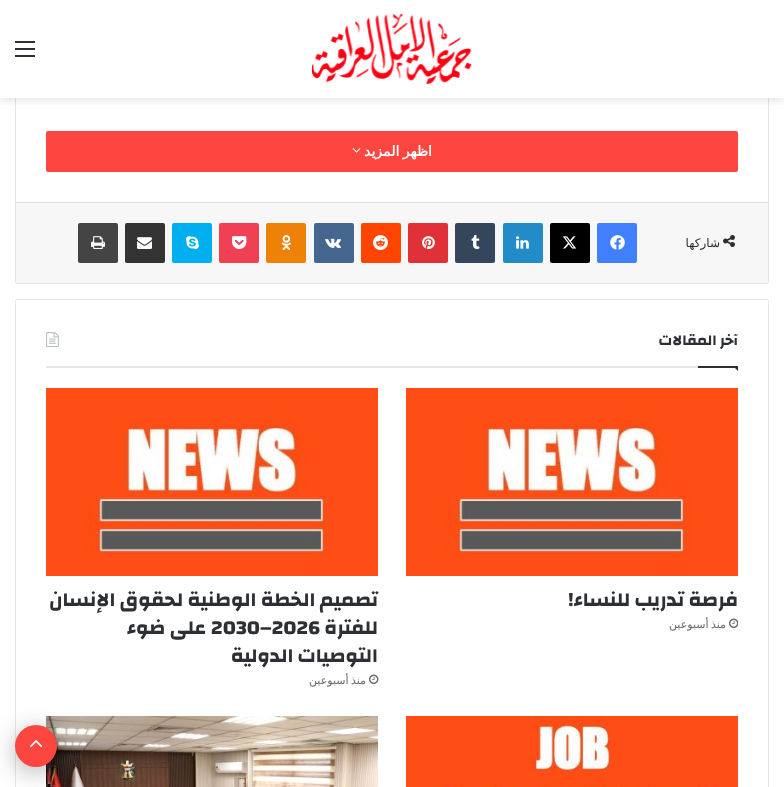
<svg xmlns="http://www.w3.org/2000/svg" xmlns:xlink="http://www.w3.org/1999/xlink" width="784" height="787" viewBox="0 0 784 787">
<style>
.cls-1{font:bold 14px DejaVu Sans;direction:rtl;fill:#ffffff}
.cls-2{font:12px DejaVu Sans;direction:rtl;fill:#2c2f34}
.cls-3{font:bold 15px Changa;direction:rtl;fill:#2c2f34}
.cls-4{font:bold 20px Changa;direction:rtl;fill:#2c2f34}
.cls-5{font:11px DejaVu Sans;direction:rtl;fill:#666666}
.cls-6{font:bold 20px Changa;fill:#2c2f34}
</style>
<defs>
<clipPath id="clip1"><rect x="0" y="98" width="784" height="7"/></clipPath>
</defs>
<rect width="100%" height="100%" fill="#ffffff"/>
<rect fill="none" stroke="#e6e6e6" x="15.5" y="-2.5" width="753" height="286" rx="1.5"/>
<g clip-path="url(#clip1)">
<rect fill="#636363" fill-opacity="0.2" filter="blur(4px)" x="0" y="2" width="784" height="98"/>
</g>
<rect fill="#ffffff" fill-opacity="0.95" x="15" y="0" width="754" height="98"/>
<image xlink:href="image0.png" x="312" y="14" width="160" height="70"/>
<rect fill="#2c2f34" x="15" y="48" width="20" height="2"/>
<rect fill="#2c2f34" x="15" y="41" width="20" height="2"/>
<rect fill="#2c2f34" x="15" y="55" width="20" height="2"/>
<rect fill="#fe4641" x="46" y="131" width="692" height="41" rx="2"/>
<image xlink:href="image1.png" x="352" y="148" width="9" height="5"/>
<rect fill="#f7f7f7" x="16" y="203" width="752" height="80"/>
<rect fill="#dedede" x="16" y="202" width="752" height="1"/>
<image xlink:href="image2.png" x="723" y="235" width="12" height="12"/>
<rect fill="#4080ff" x="597" y="223" width="40" height="40" rx="2"/>
<image xlink:href="image3.png" x="610" y="235" width="15" height="15"/>
<rect fill="#000000" x="550" y="223" width="40" height="40" rx="2"/>
<image xlink:href="image4.png" x="562" y="236" width="15" height="13"/>
<rect fill="#238cc8" x="503" y="223" width="40" height="40" rx="2"/>
<image xlink:href="image5.png" x="516" y="236" width="13" height="13"/>
<rect fill="#35465c" x="455" y="223" width="40" height="40" rx="2"/>
<image xlink:href="image6.png" x="471" y="235" width="9" height="14"/>
<rect fill="#e13138" x="408" y="223" width="40" height="40" rx="2"/>
<image xlink:href="image7.png" x="422" y="236" width="13" height="13"/>
<rect fill="#ff4500" x="361" y="223" width="40" height="40" rx="2"/>
<image xlink:href="image8.png" x="373" y="235" width="15" height="16"/>
<rect fill="#45668e" x="314" y="223" width="40" height="40" rx="2"/>
<image xlink:href="image9.png" x="325" y="238" width="16" height="10"/>
<rect fill="#ee8208" x="266" y="223" width="40" height="40" rx="2"/>
<image xlink:href="image10.png" x="281" y="235" width="10" height="15"/>
<rect fill="#ef4056" x="219" y="223" width="40" height="40" rx="2"/>
<image xlink:href="image11.png" x="232" y="236" width="15" height="13"/>
<rect fill="#00aff0" x="172" y="223" width="40" height="40" rx="2"/>
<image xlink:href="image12.png" x="186" y="236" width="13" height="13"/>
<rect fill="#333333" x="125" y="223" width="40" height="40" rx="2"/>
<image xlink:href="image13.png" x="137" y="237" width="15" height="12"/>
<rect fill="#444444" x="78" y="223" width="40" height="40" rx="2"/>
<image xlink:href="image14.png" x="91" y="236" width="14" height="13"/>
<rect fill="none" stroke="#e6e6e6" x="15.5" y="299.5" width="753" height="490" rx="1.5"/>
<rect fill="#e6e6e6" x="46" y="366" width="652" height="2"/>
<image xlink:href="image15.png" x="46" y="332" width="13" height="16"/>
<path fill="#2c2f34" d="M733 366H738V371Z"/>
<rect fill="#2c2f34" x="698" y="366" width="40" height="2"/>
<image xlink:href="image16.png" x="406" y="388" width="332" height="188"/>
<image xlink:href="image17.png" x="729" y="618" width="9" height="10"/>
<image xlink:href="image16.png" x="46" y="388" width="332" height="188"/>
<image xlink:href="image18.png" x="369" y="674" width="10" height="10"/>
<image xlink:href="image19.png" x="406" y="716" width="332" height="71"/>
<image xlink:href="image20.png" x="46" y="716" width="332" height="71"/>
<rect fill="#000000" fill-opacity="0.3" filter="blur(12.5px)" x="15" y="730" width="42" height="42" rx="21"/>
<circle fill="#fe4641" cx="36" cy="746" r="21"/>
<image xlink:href="image21.png" x="30" y="740" width="13" height="8"/>
<text class="cls-1" x="432" y="156" word-spacing="-1">اظهر المزيد</text>
<text class="cls-2" x="720" y="247">شاركها</text>
<text class="cls-3" x="738" y="345">آخر المقالات</text>
<text class="cls-4" x="738" y="606">فرصة تدريب للنساء!</text>
<text class="cls-5" x="726" y="628" word-spacing="-1">منذ أسبوعين</text>
<text class="cls-4"><tspan x="378" y="606">تصميم الخطة الوطنية لحقوق الإنسان</tspan><tspan x="378" y="634">للفترة</tspan></text>
<text class="cls-6" x="211" y="634">2030–2026</text>
<text class="cls-4" x="206" y="634">على ضوء</text>
<text class="cls-4" x="378" y="662">التوصيات الدولية</text>
<text class="cls-5" x="366" y="684" word-spacing="-1">منذ أسبوعين</text>
</svg>
